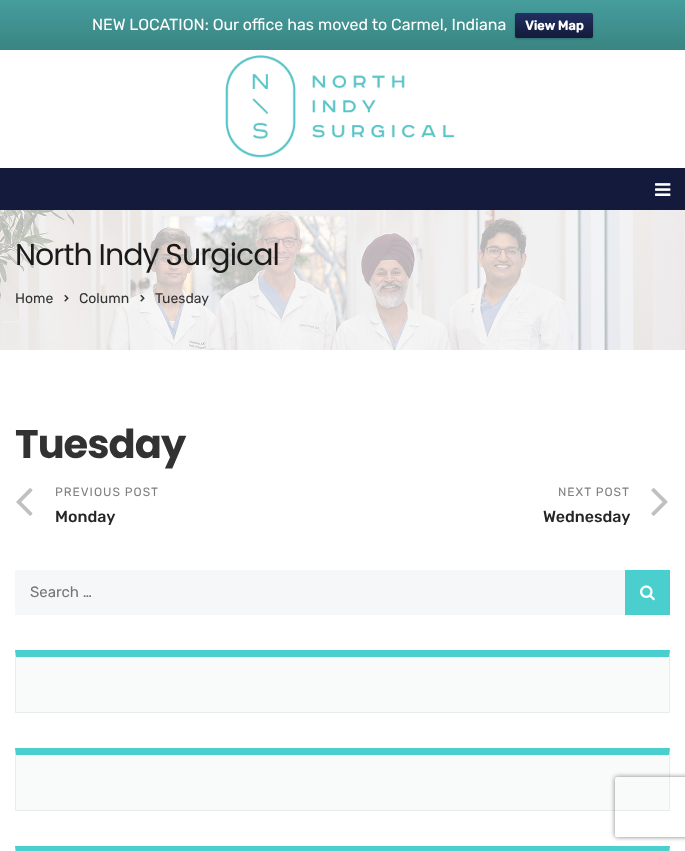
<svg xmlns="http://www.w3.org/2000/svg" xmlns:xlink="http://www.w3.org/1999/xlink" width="685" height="851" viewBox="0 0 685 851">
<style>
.cls-1{font:16px Rubik;fill:#ffffff}
.cls-2{font:bold 13px Rubik;fill:#ffffff}
.cls-3{font:30px Poppins;letter-spacing:-1px;fill:#1a1a1a}
.cls-4{font:14px Rubik;fill:#323232}
.cls-5{font:bold 40px Poppins;letter-spacing:-1px;fill:#323232}
.cls-6{font:12px Rubik;letter-spacing:1px;fill:#808080}
.cls-7{font:500 16px Rubik;fill:#252525}
.cls-8{font:15px Rubik;fill:#757575}
</style>
<defs>
<linearGradient id="g1" gradientUnits="userSpaceOnUse" x1="343" y1="0" x2="343" y2="50"><stop offset="0" stop-color="#469e9d"/><stop offset="1" stop-color="#398582"/></linearGradient>
<linearGradient id="g2" gradientUnits="userSpaceOnUse" x1="554" y1="13" x2="554" y2="38"><stop offset="0" stop-color="#223063"/><stop offset="1" stop-color="#131b39"/></linearGradient>
<clipPath id="clip1"><path d="M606 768H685V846H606ZM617 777H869C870 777 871 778 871 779V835C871 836 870 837 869 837H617C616 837 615 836 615 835V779C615 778 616 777 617 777Z" clip-rule="evenodd"/></clipPath>
</defs>
<rect width="100%" height="100%" fill="#ffffff"/>
<rect fill="url(#g1)" x="0" y="0" width="685" height="50"/>
<rect fill="#000000" fill-opacity="0.2" filter="blur(1px)" x="515" y="14" width="78" height="25" rx="2"/>
<rect fill="url(#g2)" x="515" y="13" width="78" height="25" rx="2"/>
<image xlink:href="image0.png" x="225" y="55" width="229" height="103"/>
<rect fill="#131a3b" x="0" y="168" width="685" height="42"/>
<image xlink:href="image1.png" x="655" y="183" width="16" height="13"/>
<image xlink:href="image2.png" x="0" y="210" width="685" height="140"/>
<image xlink:href="image3.png" x="64" y="294" width="5" height="8"/>
<image xlink:href="image4.png" x="140" y="294" width="5" height="8"/>
<image xlink:href="image5.png" x="16" y="488" width="17" height="28"/>
<image xlink:href="image6.png" x="651" y="488" width="17" height="28"/>
<rect fill="#f6f7f8" x="15" y="570" width="610" height="45"/>
<rect fill="#4acece" x="625" y="570" width="45" height="45"/>
<image xlink:href="image7.png" x="640" y="585" width="15" height="16"/>
<rect fill="#f9fafa" x="15" y="650" width="655" height="63"/>
<path fill="#4acece" d="M15 650H670L669 657H16Z"/>
<path fill="#000000" fill-opacity="0.06" d="M670 650V713L669 712V657Z"/>
<path fill="#000000" fill-opacity="0.06" d="M670 713H15L16 712H669Z"/>
<path fill="#000000" fill-opacity="0.06" d="M15 713V650L16 657V712Z"/>
<rect fill="#f9fafa" x="15" y="748" width="655" height="63"/>
<path fill="#4acece" d="M15 748H670L669 755H16Z"/>
<path fill="#000000" fill-opacity="0.06" d="M670 748V811L669 810V755Z"/>
<path fill="#000000" fill-opacity="0.06" d="M670 811H15L16 810H669Z"/>
<path fill="#000000" fill-opacity="0.06" d="M15 811V748L16 755V810Z"/>
<rect fill="#f9fafa" x="15" y="846" width="655" height="5"/>
<path fill="#4acece" d="M15 846H670L669 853H16Z"/>
<path fill="#000000" fill-opacity="0.06" d="M670 846V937L669 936V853Z"/>
<path fill="#000000" fill-opacity="0.06" d="M15 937V846L16 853V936Z"/>
<g clip-path="url(#clip1)">
<rect fill="#808080" filter="blur(2.5px)" x="615" y="777" width="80" height="60" rx="2"/>
</g>
<text class="cls-1" x="92" y="30">NEW LOCATION: Our office has moved to Carmel, Indiana</text>
<text class="cls-2" x="525" y="30">View Map</text>
<text class="cls-3" x="15" y="265">North Indy Surgical</text>
<text class="cls-4" x="15" y="303">Home</text>
<text class="cls-4" x="79" y="303">Column</text>
<text class="cls-4" x="155" y="303">Tuesday</text>
<text class="cls-5" x="15" y="458">Tuesday</text>
<text class="cls-6" x="55" y="496">PREVIOUS POST</text>
<text class="cls-7" x="55" y="522">Monday</text>
<text class="cls-6" x="558" y="496">NEXT POST</text>
<text class="cls-7" x="543" y="522">Wednesday</text>
<text class="cls-8" x="30" y="597">Search …</text>
</svg>
